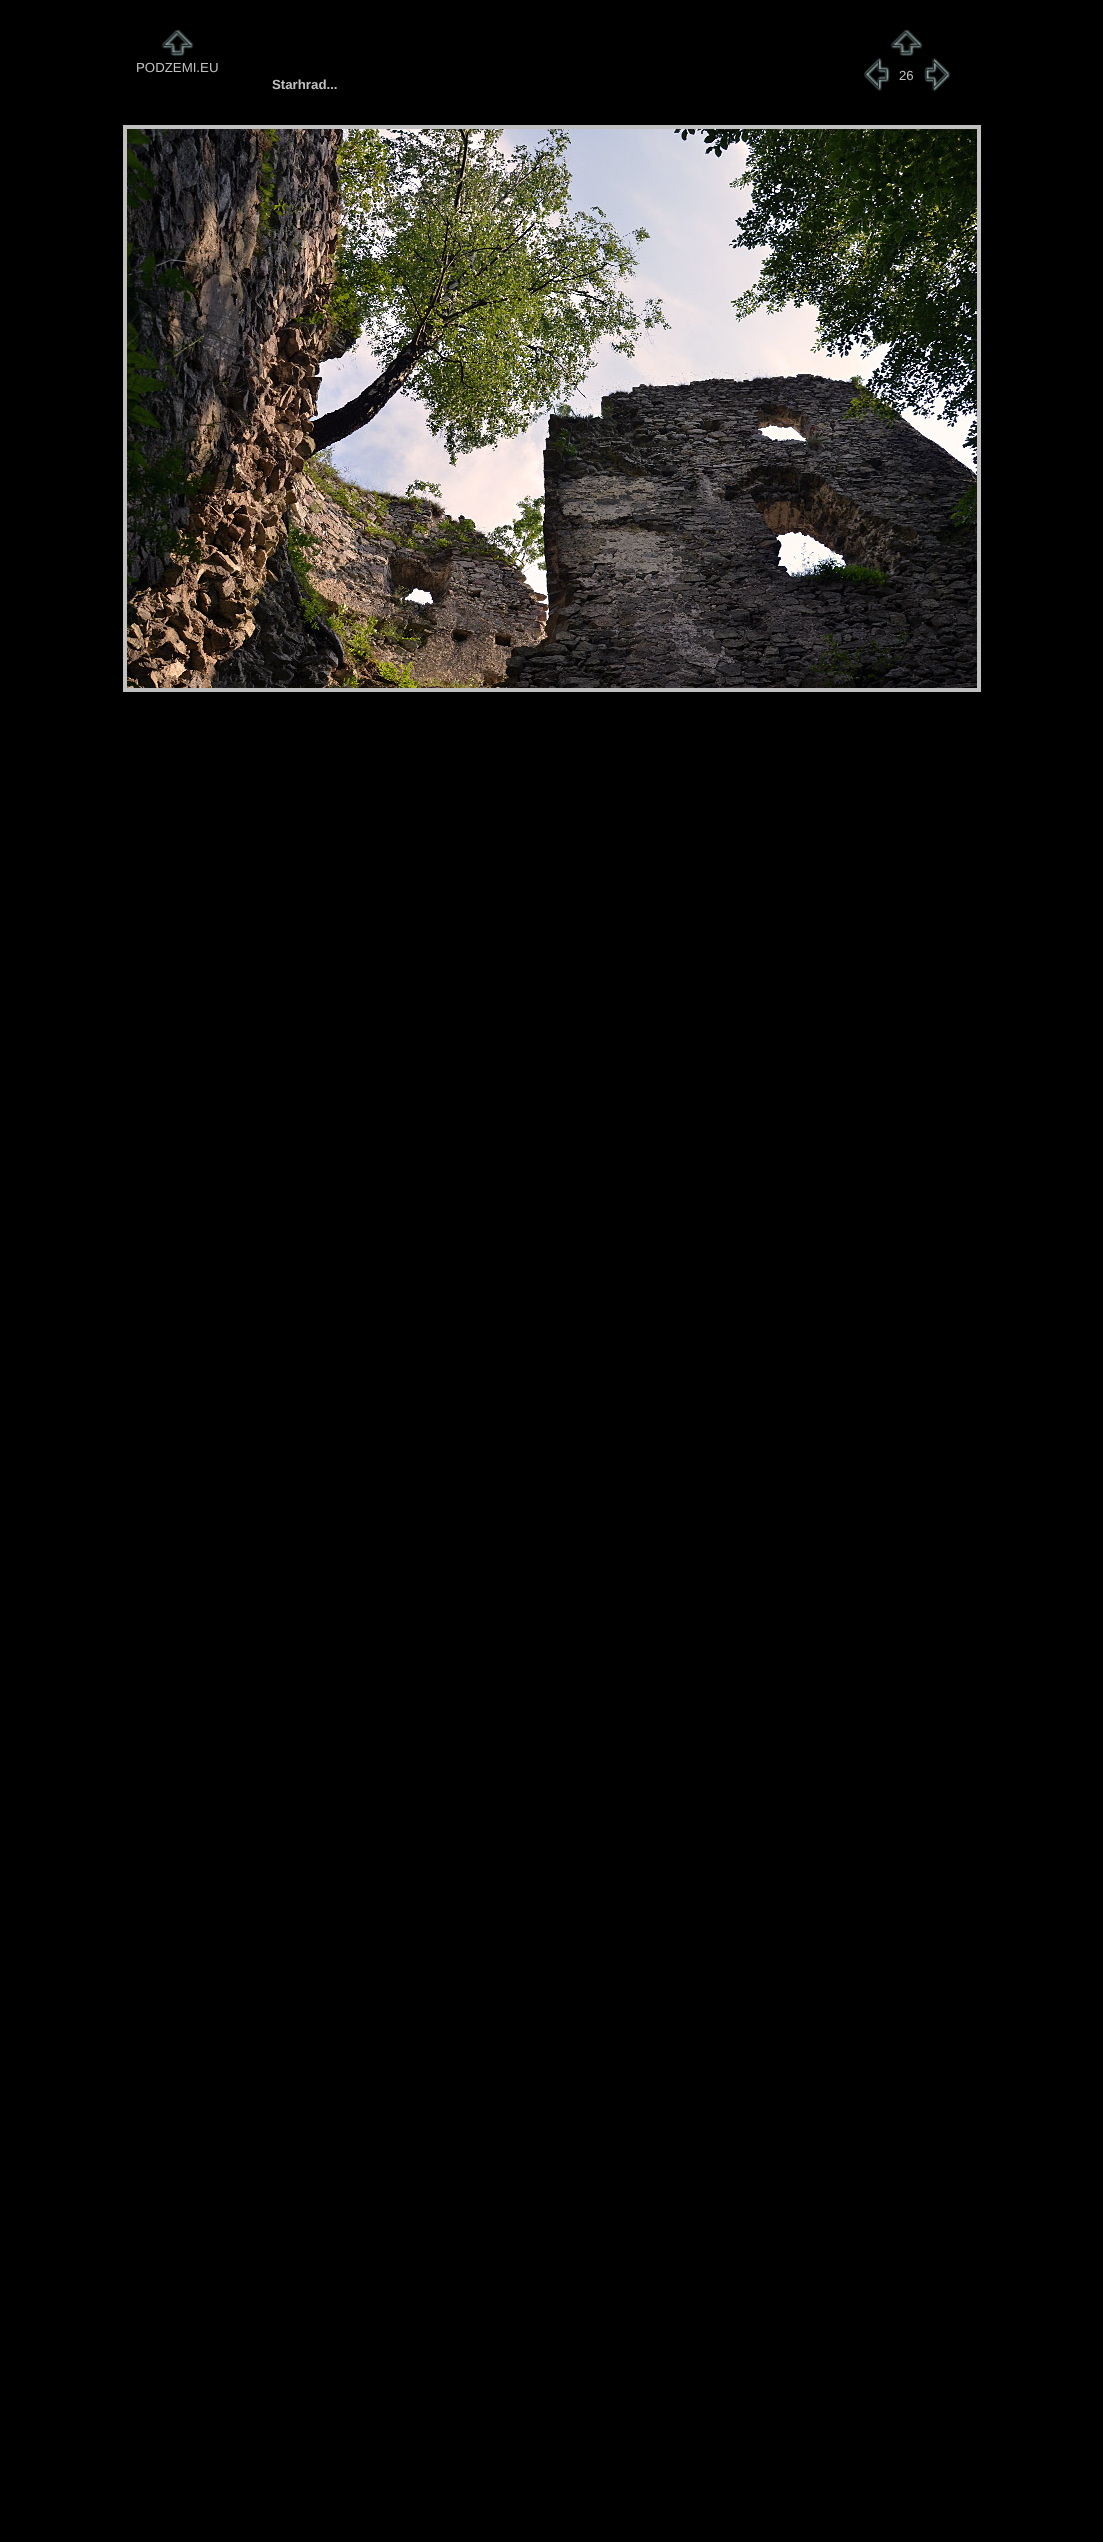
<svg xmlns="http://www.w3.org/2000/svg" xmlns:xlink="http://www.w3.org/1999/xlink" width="1103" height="2542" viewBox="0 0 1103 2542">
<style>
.cls-1{font:13.25px Liberation Sans;fill:#c0c0c0}
.cls-2{font:bold 13.25px Liberation Sans;fill:#c0c0c0}
</style>
<rect width="100%" height="100%" fill="#000000"/>
<image xlink:href="image0.png" x="161" y="30" width="33" height="26"/>
<image xlink:href="image0.png" x="890" y="30" width="33" height="26"/>
<image xlink:href="image1.png" x="863" y="58" width="27" height="34"/>
<image xlink:href="image2.png" x="924" y="58" width="27" height="34"/>
<rect fill="#c0c0c0" x="123" y="125" width="858" height="567"/>
<image xlink:href="image3.png" x="127" y="129" width="850" height="559"/>
<text class="cls-1" x="136" y="72">PODZEMI.EU</text>
<text class="cls-1" x="899" y="80">26</text>
<text class="cls-2" x="272" y="89">Starhrad...</text>
</svg>
